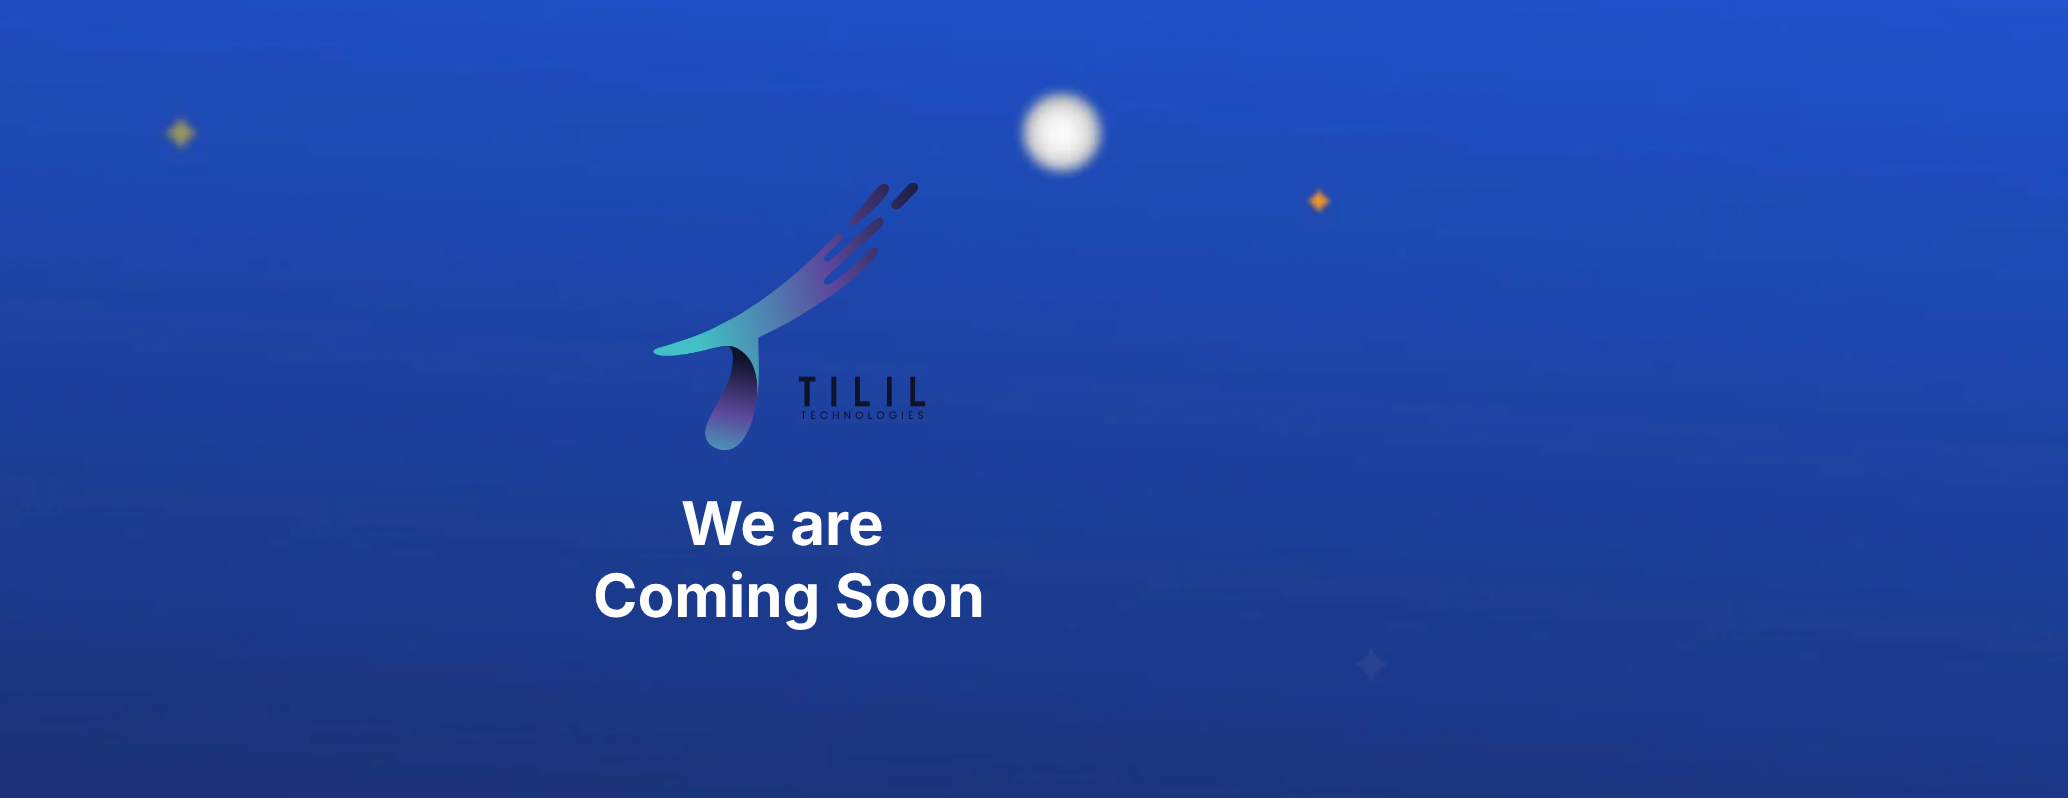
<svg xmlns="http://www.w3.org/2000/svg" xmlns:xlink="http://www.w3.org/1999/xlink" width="2068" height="798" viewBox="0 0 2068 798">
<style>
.cls-1{font:bold 60px Inter;fill:#ffffff}
</style>
<rect width="100%" height="100%" fill="#ffffff"/>
<image xlink:href="image0.png" x="0" y="0" width="2068" height="798"/>
<image xlink:href="image1.png" x="653" y="182" width="273" height="269"/>
<text class="cls-1" x="681" y="545">We are</text>
<text class="cls-1" x="593" y="617">Coming Soon</text>
</svg>
